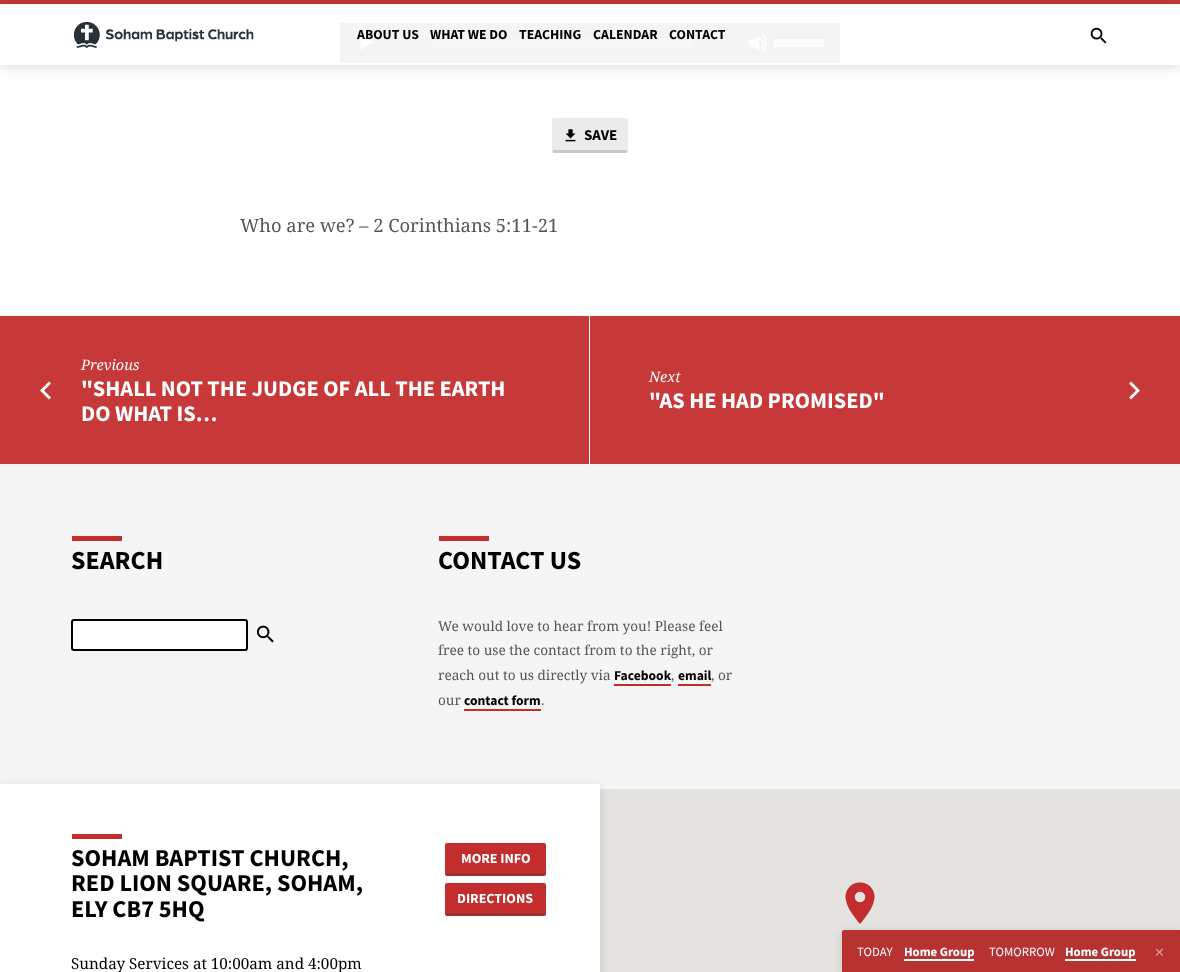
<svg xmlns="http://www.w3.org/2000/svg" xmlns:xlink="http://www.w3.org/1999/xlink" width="1180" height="972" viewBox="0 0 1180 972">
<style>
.cls-1{font:bold 13.75px Source Sans Pro;fill:#000000}
.cls-2{font:bold 15px Source Sans Pro;fill:#000000}
.cls-3{font:18.4px Noto Serif;fill:#555555}
.cls-4{font:italic 14.5px Noto Serif;fill:#ffffff}
.cls-5{font:bold 22.4px Source Sans Pro;fill:#ffffff}
.cls-6{font:bold 26px Source Sans Pro;fill:#000000}
.cls-7{font:13.6px Noto Serif;fill:#555555}
.cls-8{font:bold 13.6px Source Sans Pro;fill:#000000}
.cls-9{font:bold 24.25px Source Sans Pro;fill:#000000}
.cls-10{font:bold 14px Source Sans Pro;fill:#ffffff}
.cls-11{font:15.25px Noto Serif;fill:#000000}
.cls-12{font:12.75px Source Sans Pro;fill:#ffffff}
.cls-13{font:bold 12.75px Source Sans Pro;fill:#ffffff}
</style>
<defs>
<clipPath id="clip1"><path d="M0 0H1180V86H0ZM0 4H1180V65H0Z" clip-rule="evenodd"/></clipPath>
</defs>
<rect width="100%" height="100%" fill="#ffffff"/>
<rect fill="#c73838" x="0" y="0" width="1180" height="4"/>
<rect fill="#f4f4f4" x="340" y="23" width="500" height="40"/>
<image xlink:href="image2.png" x="360" y="34" width="13" height="16"/>
<rect fill="#f7f7f7" x="432" y="38" width="260" height="10"/>
<image xlink:href="image3.png" x="749" y="34" width="18" height="18"/>
<rect fill="#fdfdfd" x="774" y="39" width="50" height="8"/>
<g clip-path="url(#clip1)">
<rect fill="#000000" fill-opacity="0.14" filter="blur(6px)" x="0" y="6" width="1180" height="61"/>
</g>
<image xlink:href="image0.png" x="74" y="22" width="180" height="26"/>
<image xlink:href="image1.png" x="1090" y="27" width="17" height="17"/>
<rect fill="#ebebeb" x="552" y="118" width="76" height="35" rx="2"/>
<rect fill="#cacaca" x="553" y="150" width="74" height="3"/>
<image xlink:href="image4.png" x="565" y="129" width="11" height="13"/>
<rect fill="#c73838" x="0" y="316" width="1180" height="148"/>
<rect fill="#fafafa" x="589" y="316" width="1" height="148"/>
<path fill="#ffffff" d="M51 397.5L44 390.5L51 383.5L49 381.5L40 390.5L49 399.5Z"/>
<path fill="#ffffff" d="M1129 397.5L1136 390.5L1129 383.5L1131 381.5L1140 390.5L1131 399.5Z"/>
<rect fill="#f5f5f5" x="0" y="464" width="1180" height="325"/>
<rect fill="#c42d2d" x="72" y="536" width="50" height="5"/>
<rect fill="#ffffff" stroke="#000000" stroke-width="2" x="72" y="620" width="175" height="30" rx="2"/>
<image xlink:href="image5.png" x="256" y="625" width="18" height="18"/>
<rect fill="#c42d2d" x="439" y="536" width="50" height="5"/>
<rect fill="#c42d2d" x="614" y="684" width="57" height="2"/>
<rect fill="#c42d2d" x="678" y="684" width="33" height="2"/>
<rect fill="#c42d2d" x="464" y="709" width="77" height="2"/>
<rect fill="#e5e3df" x="600" y="789" width="580" height="183"/>
<rect fill="#000000" fill-opacity="0.12" filter="blur(5px)" x="0" y="786" width="600" height="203" rx="2"/>
<rect fill="#ffffff" x="0" y="784" width="600" height="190" rx="2"/>
<image xlink:href="image6.png" x="845" y="882" width="30" height="42"/>
<rect fill="#c42d2d" x="72" y="834" width="50" height="5"/>
<rect fill="#c42d2d" x="445" y="843" width="101" height="33" rx="2"/>
<rect fill="#323232" fill-opacity="0.25" x="446" y="873" width="99" height="3"/>
<rect fill="#c42d2d" x="445" y="883" width="101" height="33" rx="2"/>
<rect fill="#323232" fill-opacity="0.25" x="446" y="913" width="99" height="3"/>
<rect fill="#000000" fill-opacity="0.12" filter="blur(5px)" x="842" y="932" width="338" height="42" rx="2"/>
<path fill="#c63636" d="M844 930H1180V972H842V932C842 931 843 930 844 930Z"/>
<rect fill="#000000" fill-opacity="0.07" x="842" y="930" width="338" height="42"/>
<rect fill="#ffffff" x="904" y="959" width="70" height="2"/>
<rect fill="#ffffff" x="1065" y="959" width="71" height="2"/>
<image xlink:href="image7.png" x="1155" y="948" width="8" height="8"/>
<text class="cls-1" x="357" y="39">ABOUT US</text>
<text class="cls-1" x="430" y="39">WHAT WE DO</text>
<text class="cls-1" x="519" y="39">TEACHING</text>
<text class="cls-1" x="593" y="39">CALENDAR</text>
<text class="cls-1" x="669" y="39">CONTACT</text>
<text class="cls-2" x="584" y="140">SAVE</text>
<text class="cls-3" x="240" y="232">Who are we? – 2 Corinthians 5:11-21</text>
<text class="cls-4" x="81" y="370">Previous</text>
<text class="cls-5"><tspan x="81" y="396">"SHALL NOT THE JUDGE OF ALL THE EARTH</tspan><tspan x="81" y="421">DO WHAT IS…</tspan></text>
<text class="cls-4" x="649" y="382">Next</text>
<text class="cls-5" x="649" y="408">"AS HE HAD PROMISED"</text>
<text class="cls-6" x="71" y="569">SEARCH</text>
<text class="cls-6" x="438" y="569">CONTACT US</text>
<text class="cls-7"><tspan x="438" y="631">We would love to hear from you! Please feel</tspan><tspan x="438" y="655">free to use the contact from to the right, or</tspan><tspan x="438" y="680">reach out to us directly via</tspan></text>
<text class="cls-8" x="614" y="680">Facebook</text>
<text class="cls-7" x="671" y="680">,</text>
<text class="cls-8" x="678" y="680">email</text>
<text class="cls-7" x="711" y="680">, or</text>
<text class="cls-7" x="438" y="705">our</text>
<text class="cls-8" x="464" y="705">contact form</text>
<text class="cls-7" x="541" y="705">.</text>
<text class="cls-9"><tspan x="71" y="866">SOHAM BAPTIST CHURCH,</tspan><tspan x="71" y="891">RED LION SQUARE, SOHAM,</tspan><tspan x="71" y="917">ELY CB7 5HQ</tspan></text>
<text class="cls-10" x="461" y="863">MORE INFO</text>
<text class="cls-10" x="457" y="903">DIRECTIONS</text>
<text class="cls-11" x="71" y="969">Sunday Services at 10:00am and 4:00pm</text>
<text class="cls-12" x="857" y="956">TODAY</text>
<text class="cls-13" x="904" y="956">Home Group</text>
<text class="cls-12" x="989" y="956">TOMORROW</text>
<text class="cls-13" x="1065" y="956">Home Group</text>
</svg>
